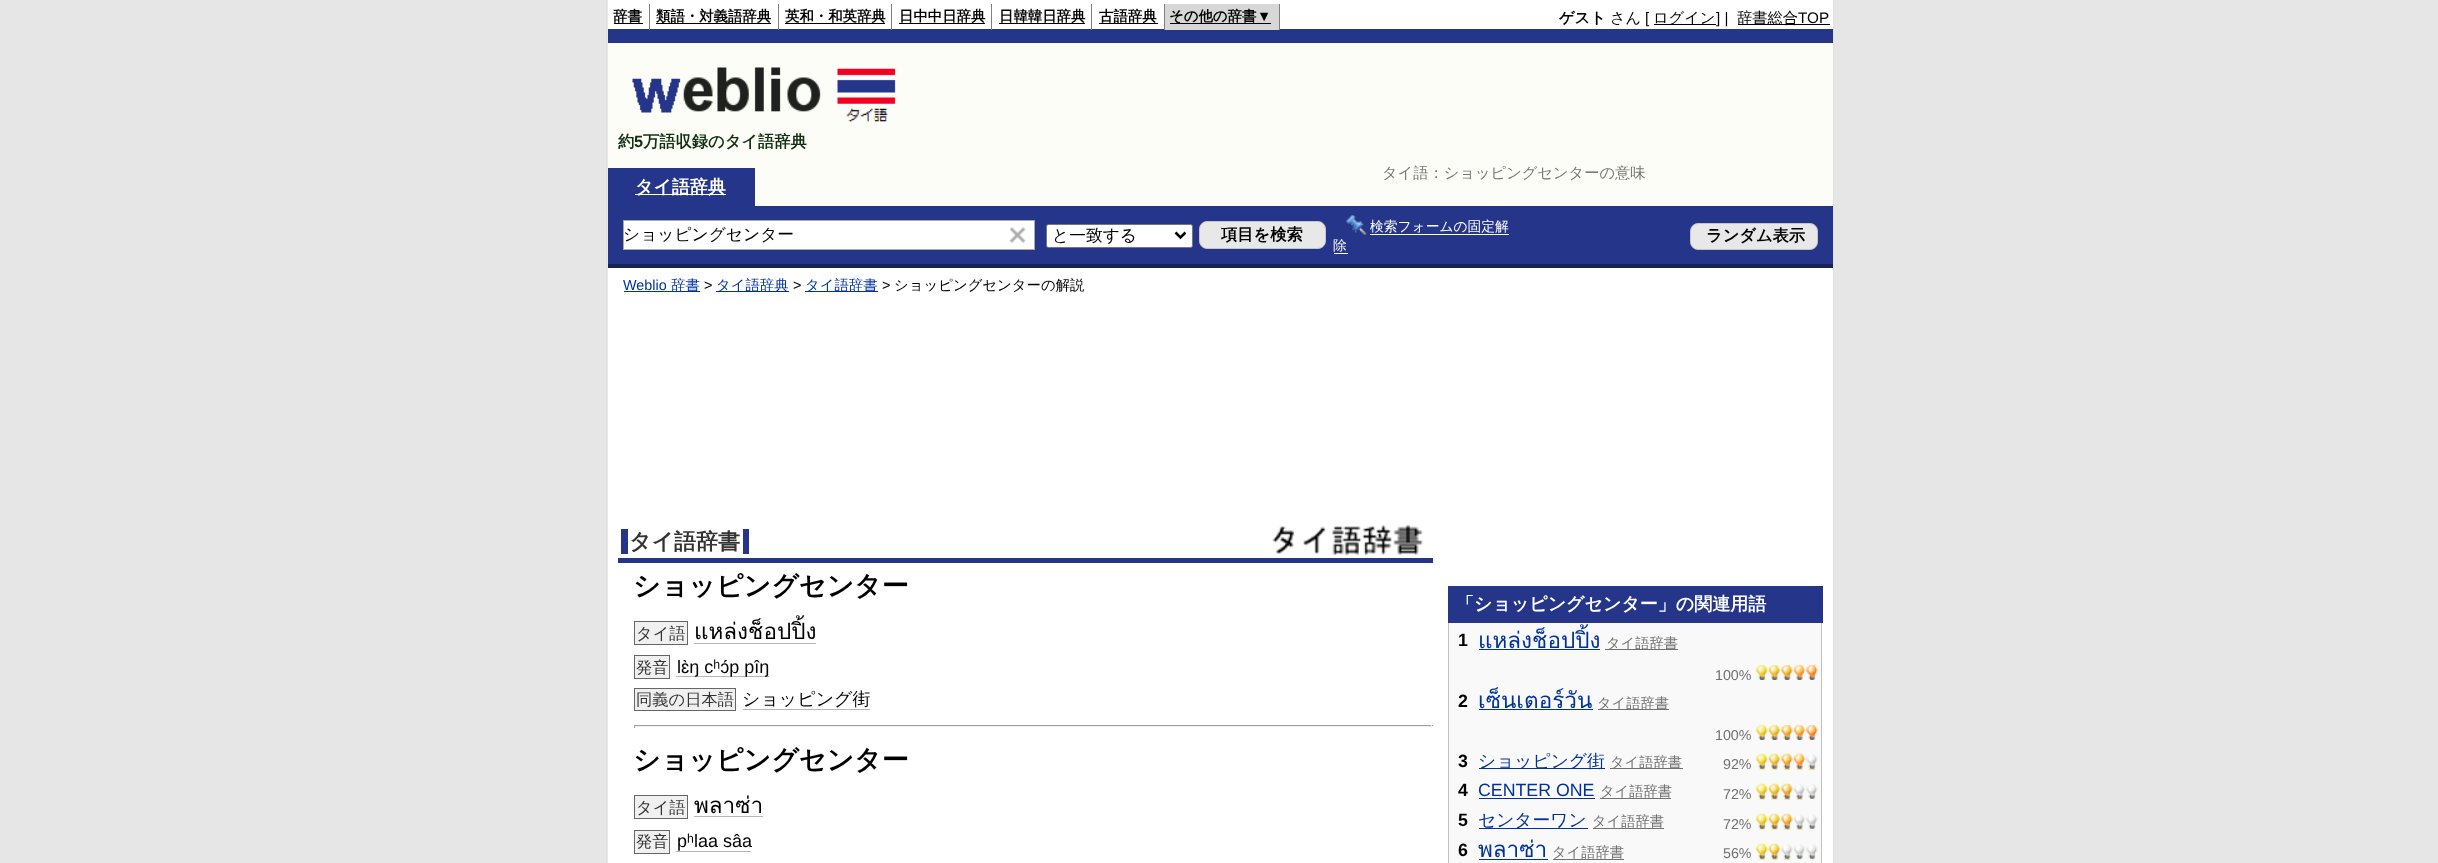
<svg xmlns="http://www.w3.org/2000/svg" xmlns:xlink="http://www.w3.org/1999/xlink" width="2438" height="863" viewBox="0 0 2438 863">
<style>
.cls-1{font:bold 14.4px WenQuanYi Zen Hei;fill:#000000}
.cls-2{font:bold 14.4px Liberation Sans;fill:#000000}
.cls-3{font:bold 15.25px WenQuanYi Zen Hei;fill:#000000}
.cls-4{font:500 15.25px WenQuanYi Zen Hei;fill:#000000}
.cls-5{font:15.25px Liberation Sans;fill:#000000}
.cls-6{font:bold 16.25px WenQuanYi Zen Hei;fill:#103011}
.cls-7{font:bold 16.25px Liberation Sans;fill:#103011}
.cls-8{font:500 15.25px WenQuanYi Zen Hei;fill:#777777}
.cls-9{font:bold 18px WenQuanYi Zen Hei;fill:#ffffff}
.cls-10{font:500 16.75px WenQuanYi Zen Hei;fill:#000000}
.cls-11{font:bold 16.25px WenQuanYi Zen Hei;fill:#000000}
.cls-12{font:500 13.75px WenQuanYi Zen Hei;fill:#ffffff}
.cls-13{font:14.4px Liberation Sans;fill:#00329b}
.cls-14{font:500 14.4px WenQuanYi Zen Hei;fill:#00329b}
.cls-15{font:14.4px Liberation Sans;fill:#000000}
.cls-16{font:500 14.4px WenQuanYi Zen Hei;fill:#000000}
.cls-17{font:bold 22px WenQuanYi Zen Hei;fill:#333333}
.cls-18{font:bold 27px WenQuanYi Zen Hei;fill:#000000}
.cls-19{font:500 16.25px WenQuanYi Zen Hei;fill:#333333}
.cls-20{font:22.5px Loma;fill:#000000}
.cls-21{font:18px Liberation Sans;fill:#000000}
.cls-22{font:500 18px WenQuanYi Zen Hei;fill:#000000}
.cls-23{font:bold 17.75px Liberation Sans;fill:#000000}
.cls-24{font:22.5px Loma;fill:#00329b}
.cls-25{font:500 14.25px WenQuanYi Zen Hei;fill:#707070}
.cls-26{font:14.25px Liberation Sans;fill:#707070}
.cls-27{font:500 17.75px WenQuanYi Zen Hei;fill:#00329b}
.cls-28{font:17.75px Liberation Sans;fill:#00329b}
</style>
<rect width="100%" height="100%" fill="#e6e6e6"/>
<rect fill="#ffffff" x="608" y="0" width="1225" height="863"/>
<rect fill="#e0e0e0" x="1833" y="0" width="1" height="863"/>
<rect fill="#e0e0e0" x="606" y="0" width="1" height="863"/>
<rect fill="#25368a" x="608" y="29" width="1225" height="14"/>
<rect fill="#7f7f7f" x="649" y="4" width="1" height="26"/>
<rect fill="#000000" x="614" y="23" width="29" height="1"/>
<rect fill="#7f7f7f" x="778" y="4" width="1" height="26"/>
<rect fill="#000000" x="656" y="23" width="115" height="1"/>
<rect fill="#7f7f7f" x="891" y="4" width="1" height="26"/>
<rect fill="#000000" x="785" y="23" width="100" height="1"/>
<rect fill="#7f7f7f" x="991" y="4" width="1" height="26"/>
<rect fill="#000000" x="899" y="23" width="86" height="1"/>
<rect fill="#7f7f7f" x="1091" y="4" width="1" height="26"/>
<rect fill="#000000" x="999" y="23" width="86" height="1"/>
<rect fill="#7f7f7f" x="1164" y="4" width="1" height="26"/>
<rect fill="#000000" x="1099" y="23" width="59" height="1"/>
<rect fill="#d7d7d7" x="1165" y="4" width="114" height="26"/>
<rect fill="#7f7f7f" x="1279" y="4" width="1" height="26"/>
<rect fill="#000000" x="1170" y="23" width="101" height="1"/>
<rect fill="#000000" x="1654" y="24" width="62" height="1"/>
<rect fill="#000000" x="1738" y="24" width="92" height="1"/>
<rect fill="#fdfdf7" x="608" y="43" width="1225" height="125"/>
<image xlink:href="image0.png" x="632" y="67" width="264" height="55"/>
<rect fill="#fdfdf7" x="755" y="168" width="1078" height="38"/>
<rect fill="#25368a" x="608" y="168" width="147" height="38"/>
<rect fill="#ffffff" x="635" y="194" width="91" height="1"/>
<rect fill="#25368a" x="608" y="206" width="1225" height="58"/>
<rect fill="#172357" x="608" y="264" width="1225" height="4"/>
<rect fill="#ffffff" x="624" y="221" width="410" height="28"/>
<rect fill="#a9a9a9" x="623" y="220" width="412" height="1"/>
<rect fill="#a9a9a9" x="1034" y="220" width="1" height="30"/>
<rect fill="#a9a9a9" x="623" y="249" width="412" height="1"/>
<rect fill="#a9a9a9" x="623" y="220" width="1" height="30"/>
<image xlink:href="image1.png" x="1009" y="227" width="17" height="16"/>
<rect fill="#ffffff" stroke="#767676" x="1046.5" y="224.5" width="146" height="23" rx="2"/>
<path fill="none" stroke="#000000" stroke-width="2.5" d="M1175.5 232.5L1180.5 237.5L1185.5 232.5"/>
<rect fill="#e8e8e8" stroke="#c5c5c5" x="1199.5" y="221.5" width="126" height="27" rx="7.5"/>
<image xlink:href="image2.png" x="1346" y="215" width="21" height="20"/>
<rect fill="#ffffff" x="1370" y="234" width="139" height="1"/>
<rect fill="#ffffff" x="1334" y="253" width="14" height="1"/>
<rect fill="#e8e8e8" stroke="#c5c5c5" x="1690.5" y="223.5" width="127" height="26" rx="7.5"/>
<rect fill="#00329b" x="624" y="291" width="76" height="1"/>
<rect fill="#00329b" x="716" y="291" width="73" height="1"/>
<rect fill="#00329b" x="805" y="291" width="73" height="1"/>
<rect fill="#25368a" x="618" y="558" width="815" height="5"/>
<rect fill="#25368a" x="743" y="529" width="6" height="25"/>
<rect fill="#25368a" x="621" y="529" width="7" height="25"/>
<image xlink:href="image3.png" x="1272" y="524" width="151" height="32"/>
<rect fill="#f0f0f0" stroke="#666666" x="634.5" y="621.5" width="53" height="23"/>
<rect fill="#b5b6b5" x="694" y="643" width="122" height="1"/>
<rect fill="#f0f0f0" stroke="#666666" x="634.5" y="655.5" width="35" height="23"/>
<rect fill="#b5b6b5" x="676" y="676" width="93" height="1"/>
<rect fill="#f0f0f0" stroke="#666666" x="634.5" y="688.5" width="101" height="22"/>
<rect fill="#b5b6b5" x="743" y="709" width="127" height="1"/>
<rect fill="#9f9f9f" x="634" y="725" width="799" height="1"/>
<rect fill="#eeeeee" x="1431" y="725" width="1" height="3"/>
<rect fill="#eeeeee" x="634" y="726" width="799" height="1"/>
<rect fill="#9f9f9f" x="634" y="725" width="1" height="3"/>
<rect fill="#f0f0f0" stroke="#666666" x="634.5" y="795.5" width="53" height="23"/>
<rect fill="#b5b6b5" x="694" y="816" width="69" height="1"/>
<rect fill="#f0f0f0" stroke="#666666" x="634.5" y="830.5" width="35" height="23"/>
<rect fill="#b5b6b5" x="676" y="851" width="75" height="1"/>
<rect fill="#25368a" x="1448" y="586" width="375" height="37"/>
<rect fill="#f9f9f9" x="1449" y="623" width="372" height="240"/>
<rect fill="#c0c0c0" x="1821" y="623" width="1" height="240"/>
<rect fill="#c0c0c0" x="1448" y="623" width="1" height="240"/>
<rect fill="#00329b" x="1479" y="649" width="121" height="1"/>
<rect fill="#707070" x="1605" y="649" width="73" height="1"/>
<image xlink:href="image4.png" x="1756" y="665" width="62" height="15"/>
<rect fill="#00329b" x="1479" y="709" width="114" height="1"/>
<rect fill="#707070" x="1598" y="709" width="71" height="1"/>
<image xlink:href="image4.png" x="1756" y="725" width="62" height="15"/>
<rect fill="#00329b" x="1479" y="768" width="126" height="1"/>
<rect fill="#707070" x="1610" y="768" width="73" height="1"/>
<image xlink:href="image5.png" x="1756" y="753" width="62" height="17"/>
<rect fill="#00329b" x="1479" y="798" width="116" height="1"/>
<rect fill="#707070" x="1600" y="798" width="71" height="1"/>
<image xlink:href="image6.png" x="1756" y="783" width="62" height="17"/>
<rect fill="#00329b" x="1479" y="828" width="109" height="1"/>
<rect fill="#707070" x="1593" y="828" width="71" height="1"/>
<image xlink:href="image6.png" x="1756" y="813" width="62" height="17"/>
<rect fill="#00329b" x="1479" y="859" width="69" height="1"/>
<rect fill="#707070" x="1553" y="859" width="71" height="1"/>
<image xlink:href="image7.png" x="1756" y="843" width="62" height="17"/>
<text class="cls-1" x="613" y="21">辞書</text>
<text class="cls-1" x="656" y="21">類語・対義語辞典</text>
<text class="cls-1" x="785" y="21">英和・和英辞典</text>
<text class="cls-1" x="899" y="21">日中中日辞典</text>
<text class="cls-1" x="999" y="21">日韓韓日辞典</text>
<text class="cls-1" x="1099" y="21">古語辞典</text>
<text class="cls-1" x="1169" y="21">その他の辞書</text>
<text class="cls-2" x="1257" y="21">▼</text>
<text class="cls-3" x="1559" y="23">ゲスト</text>
<text class="cls-4" x="1610" y="23">さん</text>
<text class="cls-5" x="1645" y="23">[</text>
<text class="cls-4" x="1653" y="23">ログイン</text>
<text class="cls-5" x="1716" y="23">] |</text>
<text class="cls-4" x="1737" y="23">辞書総合</text>
<text class="cls-5" x="1798" y="23">TOP</text>
<text class="cls-6" x="618" y="147">約</text>
<text class="cls-7" x="634" y="147">5</text>
<text class="cls-6" x="643" y="147">万語収録のタイ語辞典</text>
<text class="cls-8" x="1382" y="178">タイ語：ショッピングセンターの意味</text>
<text class="cls-9" x="635" y="193">タイ語辞典</text>
<text class="cls-10" x="623" y="240">ショッピングセンター</text>
<text class="cls-10" x="1052" y="241">と一致する</text>
<text class="cls-11" x="1221" y="240">項目を検索</text>
<text class="cls-12" x="1370" y="231">検索フォームの固定解</text>
<text class="cls-12" x="1333" y="250">除</text>
<text class="cls-11" x="1706" y="241">ランダム表示</text>
<text class="cls-13" x="623" y="290">Weblio</text>
<text class="cls-14" x="671" y="290">辞書</text>
<text class="cls-15" x="704" y="290">&gt;</text>
<text class="cls-14" x="716" y="290">タイ語辞典</text>
<text class="cls-15" x="793" y="290">&gt;</text>
<text class="cls-14" x="805" y="290">タイ語辞書</text>
<text class="cls-15" x="882" y="290">&gt;</text>
<text class="cls-16" x="894" y="290">ショッピングセンターの解説</text>
<text class="cls-17" x="629" y="549">タイ語辞書</text>
<text class="cls-18" x="633" y="595">ショッピングセンター</text>
<text class="cls-19" x="636" y="639">タイ語</text>
<text class="cls-20" x="694" y="639">แหล่งช็อปปิ้ง</text>
<text class="cls-19" x="636" y="673">発音</text>
<text class="cls-21" x="677" y="673">lɛ̀ŋ cʰɔ́p pîŋ</text>
<text class="cls-19" x="636" y="705">同義の日本語</text>
<text class="cls-22" x="742" y="705">ショッピング街</text>
<text class="cls-18" x="633" y="769">ショッピングセンター</text>
<text class="cls-19" x="636" y="813">タイ語</text>
<text class="cls-20" x="694" y="813">พลาซ่า</text>
<text class="cls-19" x="636" y="847">発音</text>
<text class="cls-21" x="677" y="847">pʰlaa sâa</text>
<text class="cls-9" x="1456" y="610">「ショッピングセンター」の関連用語</text>
<text class="cls-23" x="1458" y="646">1</text>
<text class="cls-24" x="1478" y="648">แหล่งช็อปปิ้ง</text>
<text class="cls-25" x="1606" y="648">タイ語辞書</text>
<text class="cls-26" x="1715" y="680">100%</text>
<text class="cls-23" x="1458" y="707">2</text>
<text class="cls-24" x="1478" y="708">เซ็นเตอร์วัน</text>
<text class="cls-25" x="1597" y="708">タイ語辞書</text>
<text class="cls-26" x="1715" y="740">100%</text>
<text class="cls-23" x="1458" y="767">3</text>
<text class="cls-27" x="1478" y="767">ショッピング街</text>
<text class="cls-25" x="1610" y="767">タイ語辞書</text>
<text class="cls-26" x="1723" y="769">92%</text>
<text class="cls-23" x="1458" y="796">4</text>
<text class="cls-28" x="1478" y="796">CENTER ONE</text>
<text class="cls-25" x="1600" y="796">タイ語辞書</text>
<text class="cls-26" x="1723" y="799">72%</text>
<text class="cls-23" x="1458" y="826">5</text>
<text class="cls-27" x="1478" y="826">センターワン</text>
<text class="cls-25" x="1592" y="826">タイ語辞書</text>
<text class="cls-26" x="1723" y="829">72%</text>
<text class="cls-23" x="1458" y="856">6</text>
<text class="cls-24" x="1478" y="857">พลาซ่า</text>
<text class="cls-25" x="1552" y="857">タイ語辞書</text>
<text class="cls-26" x="1723" y="858">56%</text>
</svg>
